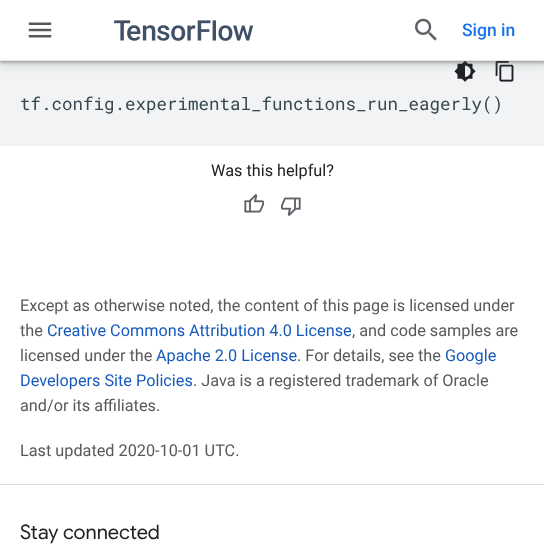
<svg xmlns="http://www.w3.org/2000/svg" xmlns:xlink="http://www.w3.org/1999/xlink" width="544" height="555" viewBox="0 0 544 555">
<style>
.cls-1{font:500 17.5px Roboto;fill:#1a73e8}
.cls-2{font:17.5px Roboto Mono;fill:#37474f}
.cls-3{font:16.25px Roboto;fill:#202124}
.cls-4{font:16.25px Roboto;fill:#595959}
.cls-5{font:16.25px Roboto;fill:#185abc}
.cls-6{font:20px Google Sans;fill:#202124}
</style>
<rect width="100%" height="100%" fill="#ffffff"/>
<rect fill="#f1f3f4" x="0" y="61" width="544" height="85"/>
<image xlink:href="image3.png" x="454" y="61" width="22" height="21"/>
<image xlink:href="image4.png" x="495" y="61" width="19" height="21"/>
<rect fill="#3c4043" fill-opacity="0.15" filter="blur(4px)" x="-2" y="-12" width="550" height="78"/>
<rect fill="#3c4043" fill-opacity="0.3" filter="blur(1px)" x="0" y="-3" width="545" height="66"/>
<rect fill="#ffffff" x="0" y="0" width="544" height="60"/>
<rect fill="#e6e6e6" x="0" y="60" width="544" height="1"/>
<image xlink:href="image0.png" x="28" y="22" width="24" height="16"/>
<image xlink:href="image1.png" x="114" y="20" width="140" height="21"/>
<image xlink:href="image2.png" x="415" y="18" width="22" height="23"/>
<image xlink:href="image5.png" x="244" y="194" width="21" height="19"/>
<image xlink:href="image6.png" x="280" y="197" width="21" height="19"/>
<rect fill="#dadce0" x="0" y="484" width="544" height="1"/>
<text class="cls-1" x="462" y="36">Sign in</text>
<text class="cls-2" x="20" y="110">tf.config.experimental_functions_run_eagerly()</text>
<text class="cls-3" x="211" y="176">Was this helpful?</text>
<text class="cls-4"><tspan x="20" y="311">Except as otherwise noted, the content of this page is licensed under</tspan><tspan x="20" y="336">the</tspan></text>
<text class="cls-5" x="47" y="336">Creative Commons Attribution 4.0 License</text>
<text class="cls-4" x="352" y="336">, and code samples are</text>
<text class="cls-4" x="20" y="361">licensed under the</text>
<text class="cls-5" x="156" y="361">Apache 2.0 License</text>
<text class="cls-4" x="297" y="361">. For details, see the</text>
<text class="cls-5" x="445" y="361">Google</text>
<text class="cls-5" x="20" y="386">Developers Site Policies</text>
<text class="cls-4" x="193" y="386">. Java is a registered trademark of Oracle</text>
<text class="cls-4" x="20" y="411">and/or its affiliates.</text>
<text class="cls-4" x="20" y="456">Last updated 2020-10-01 UTC.</text>
<text class="cls-6" x="20" y="539">Stay connected</text>
</svg>
